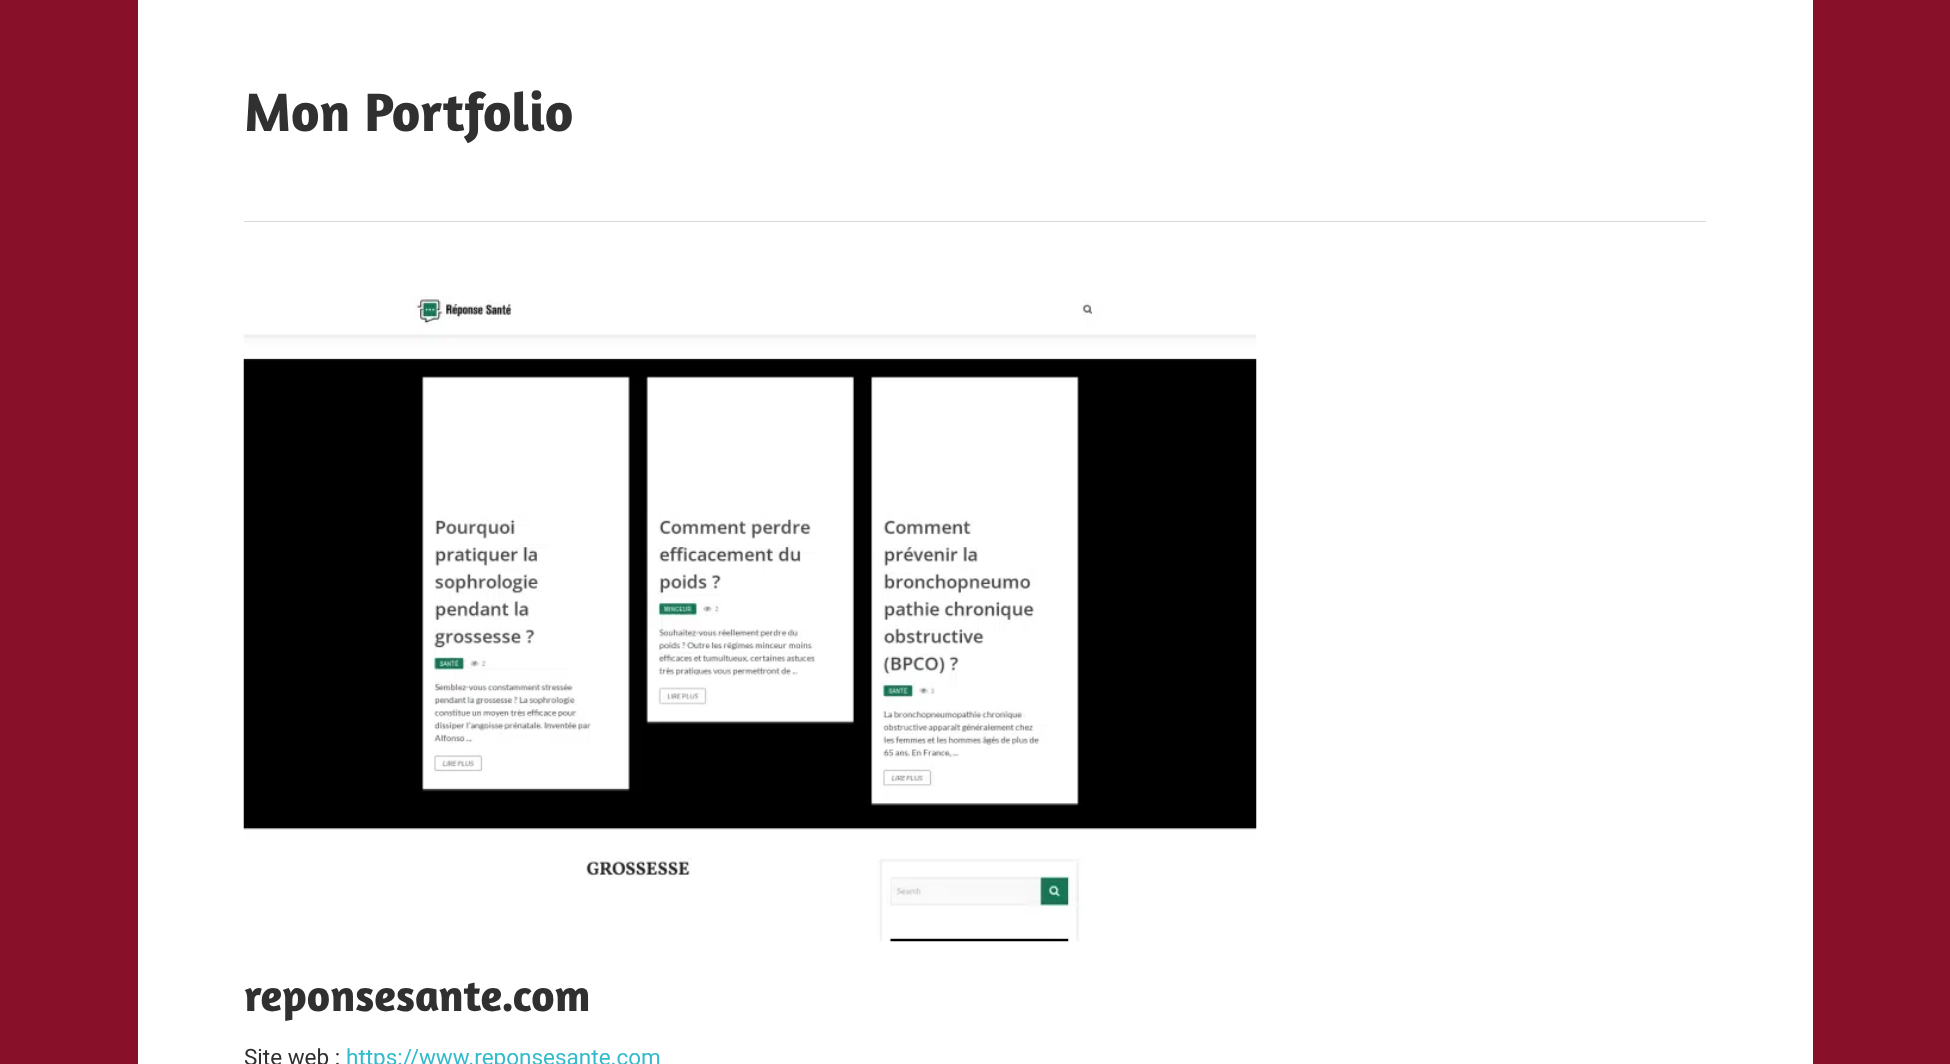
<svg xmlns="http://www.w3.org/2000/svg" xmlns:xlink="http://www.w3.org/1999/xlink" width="1950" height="1064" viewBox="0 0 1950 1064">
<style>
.cls-1{font:bold 55px Amaranth;fill:#303030}
.cls-2{font:bold 45px Amaranth;fill:#303030}
.cls-3{font:22.5px Roboto;fill:#303030}
.cls-4{font:22.5px Roboto;fill:#33bbcc}
</style>
<rect width="100%" height="100%" fill="#881029"/>
<rect fill="#ffffff" x="138" y="0" width="1675" height="1064"/>
<rect fill="#d9d9d9" x="244" y="221" width="1462" height="1"/>
<image xlink:href="image0.png" x="243" y="296" width="1014" height="646"/>
<text class="cls-1" x="244" y="131">Mon Portfolio</text>
<text class="cls-2" x="244" y="1011">reponsesante.com</text>
<text class="cls-3" x="244" y="1065">Site web :</text>
<text class="cls-4" x="346" y="1065">https://www.reponsesante.com</text>
</svg>
